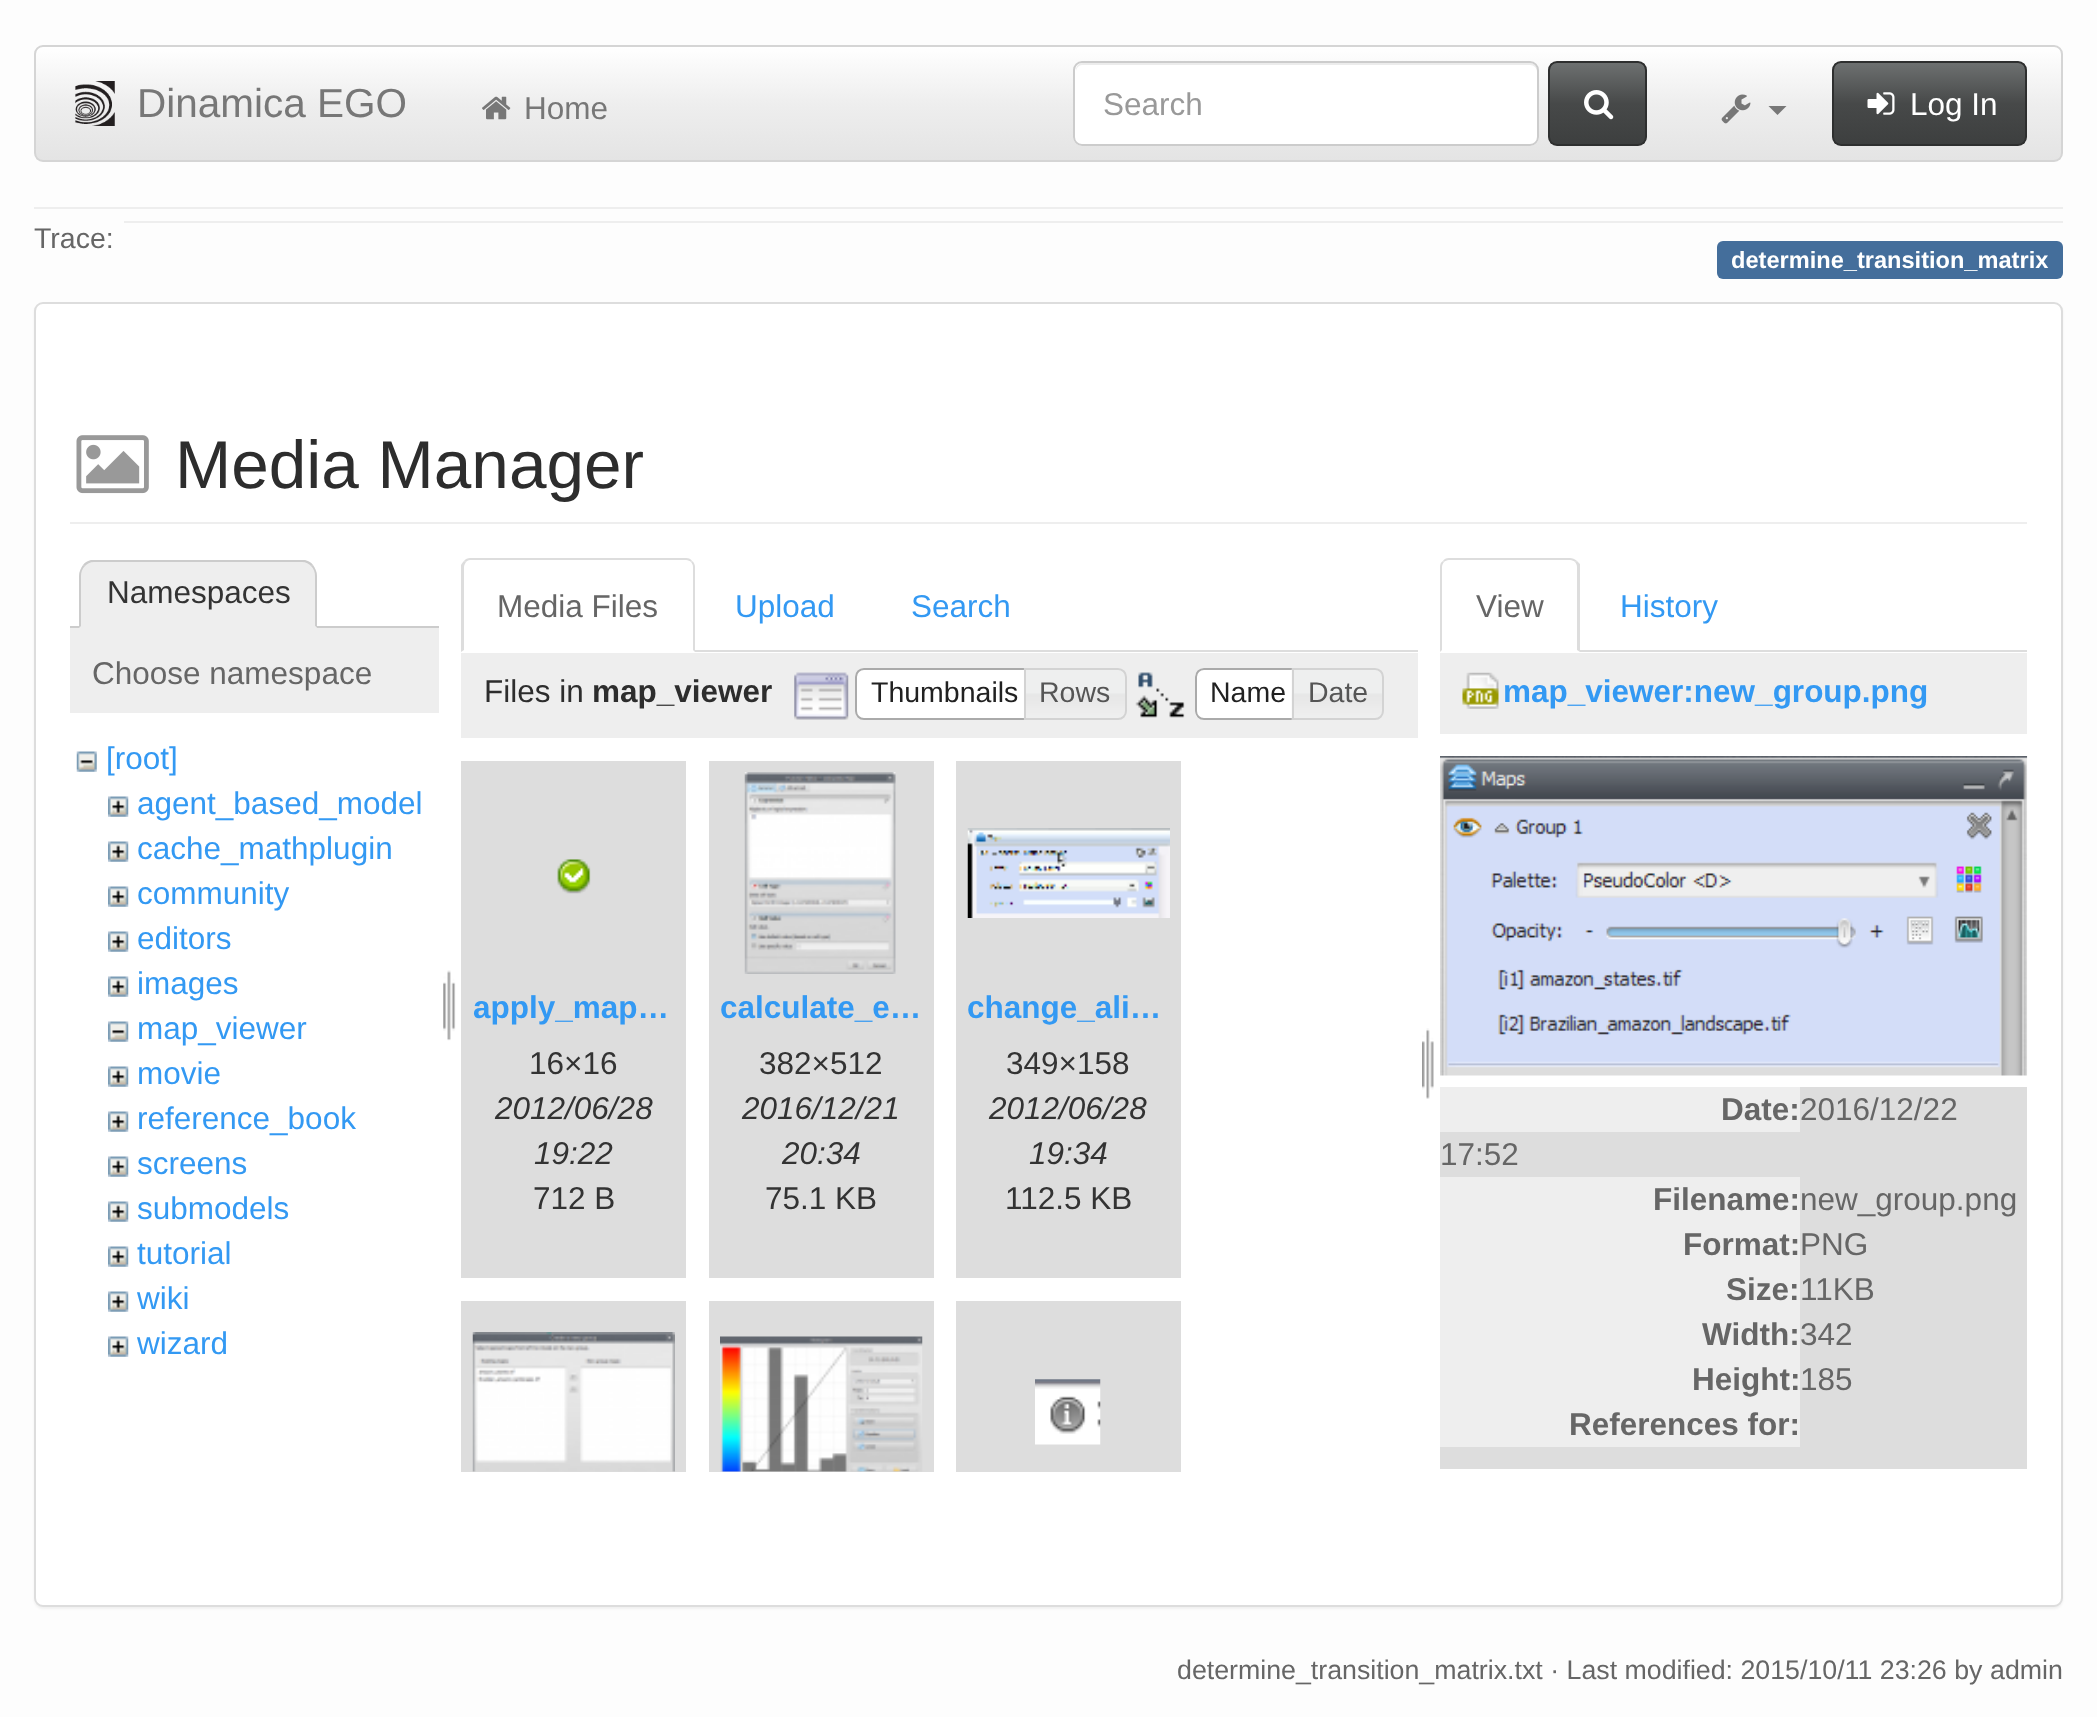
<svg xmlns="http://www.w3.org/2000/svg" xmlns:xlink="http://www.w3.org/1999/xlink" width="2097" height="1717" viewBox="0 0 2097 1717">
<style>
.cls-1{font:40.5px Liberation Sans;fill:#777777}
.cls-2{font:31.5px Liberation Sans;fill:#777777}
.cls-3{font:31.5px Liberation Sans;fill:#999999}
.cls-4{font:31.5px Liberation Sans;fill:#ffffff}
.cls-5{font:28.5px Liberation Sans;fill:#666666}
.cls-6{font:bold 23.6px Liberation Sans;fill:#ffffff}
.cls-7{font:67.5px Liberation Sans;fill:#2d2d2d}
.cls-8{font:31.5px Liberation Sans;fill:#333333}
.cls-9{font:31.5px Liberation Sans;fill:#666666}
.cls-10{font:31.5px Liberation Sans;fill:#3399f3}
.cls-11{font:31.5px Liberation Sans;fill:#2d2d2d}
.cls-12{font:bold 31.5px Liberation Sans;fill:#2d2d2d}
.cls-13{font:28.5px Liberation Sans;fill:#212121}
.cls-14{font:28.5px Liberation Sans;fill:#555555}
.cls-15{font:bold 31.5px Liberation Sans;fill:#3399f3}
.cls-16{font:italic 31.5px Liberation Sans;fill:#333333}
.cls-17{font:bold 31.5px Liberation Sans;fill:#666666}
.cls-18{font:26.75px Liberation Sans;fill:#666666}
</style>
<defs>
<clipPath id="clip1"><rect x="34" y="45" width="2029" height="117" rx="9"/></clipPath>
<linearGradient id="g1" gradientUnits="userSpaceOnUse" x1="1049" y1="47" x2="1049" y2="160"><stop offset="0" stop-color="#ffffff"/><stop offset="0.5" stop-color="#eeeeee"/><stop offset="1" stop-color="#e4e4e4"/></linearGradient>
<clipPath id="clip2"><rect x="1548" y="61" width="99" height="85" rx="9"/></clipPath>
<linearGradient id="g2" gradientUnits="userSpaceOnUse" x1="1598" y1="63" x2="1598" y2="144"><stop offset="0" stop-color="#6d7070"/><stop offset="0.5" stop-color="#474949"/><stop offset="1" stop-color="#3d3f3f"/></linearGradient>
<clipPath id="clip3"><rect x="1832" y="61" width="195" height="85" rx="9"/></clipPath>
<linearGradient id="g3" gradientUnits="userSpaceOnUse" x1="1929" y1="63" x2="1929" y2="144"><stop offset="0" stop-color="#6d7070"/><stop offset="0.5" stop-color="#474949"/><stop offset="1" stop-color="#3d3f3f"/></linearGradient>
</defs>
<rect width="100%" height="100%" fill="#fdfdfd"/>
<g clip-path="url(#clip1)">
<rect fill="url(#g1)" x="36" y="47" width="2025" height="113"/>
</g>
<rect fill="none" stroke="#d5d5d5" stroke-width="2" x="35" y="46" width="2027" height="115" rx="8"/>
<image xlink:href="image0.png" x="75" y="81" width="40" height="45"/>
<image xlink:href="image1.png" x="482" y="96" width="29" height="24"/>
<rect fill="#ffffff" x="1073" y="61" width="466" height="85" rx="9"/>
<path fill="#ececec" d="M1082 65H1530C1534 65 1537 68 1537 72V70C1537 66 1534 63 1530 63H1083C1079 63 1076 66 1076 70V72C1076 68 1079 65 1082 65Z"/>
<rect fill="none" stroke="#cccccc" stroke-width="2" x="1074" y="62" width="464" height="83" rx="8"/>
<g clip-path="url(#clip2)">
<rect fill="url(#g2)" x="1550" y="63" width="95" height="81"/>
</g>
<rect fill="none" stroke="#2e2f2f" stroke-width="2" x="1549" y="62" width="97" height="83" rx="8"/>
<image xlink:href="image2.png" x="1584" y="90" width="30" height="30"/>
<image xlink:href="image3.png" x="1721" y="94" width="30" height="30"/>
<path fill="#777777" d="M1768.5 106H1786.5L1777.5 115Z"/>
<g clip-path="url(#clip3)">
<rect fill="url(#g3)" x="1834" y="63" width="191" height="81"/>
</g>
<rect fill="none" stroke="#2e2f2f" stroke-width="2" x="1833" y="62" width="193" height="83" rx="8"/>
<image xlink:href="image4.png" x="1867" y="92" width="28" height="23"/>
<rect fill="#eeeeee" x="34" y="207" width="2029" height="2"/>
<rect fill="#eeeeee" x="124" y="221" width="1939" height="2"/>
<rect fill="#446e9b" x="1717" y="241" width="346" height="38" rx="6"/>
<rect fill="#000000" fill-opacity="0.05" filter="blur(1px)" x="34" y="304" width="2029" height="1305" rx="9"/>
<rect fill="#ffffff" stroke="#dddddd" stroke-width="2" x="35" y="303" width="2027" height="1303" rx="8"/>
<rect fill="#eeeeee" x="70" y="522" width="1957" height="2"/>
<image xlink:href="image5.png" x="76" y="435" width="73" height="59"/>
<rect fill="#cccccc" x="70" y="626" width="369" height="2"/>
<path fill="#eeeeee" d="M95 560H301C310 560 317 567 317 576V628H79V576C79 567 86 560 95 560Z"/>
<path fill="#cccccc" d="M94 562C90 562 87 564 85 566L83 565C85 562 88 561 91 560H305C308 561 311 562 313 565L311 566C309 564 306 562 302 562Z"/>
<path fill="#cccccc" d="M313 565C315 568 317 572 317 576V628L315 626V576C315 572 314 569 311 566Z"/>
<path fill="#eeeeee" d="M79 628L81 626H315L317 628Z"/>
<path fill="#cccccc" d="M79 628V576C79 572 81 568 83 565L85 566C82 569 81 572 81 576V626Z"/>
<rect fill="#eeeeee" x="70" y="628" width="369" height="85"/>
<image xlink:href="image6.png" x="76" y="751" width="21" height="21"/>
<image xlink:href="image7.png" x="108" y="796" width="21" height="21"/>
<image xlink:href="image7.png" x="108" y="841" width="21" height="21"/>
<image xlink:href="image7.png" x="108" y="886" width="21" height="21"/>
<image xlink:href="image7.png" x="108" y="931" width="21" height="21"/>
<image xlink:href="image7.png" x="108" y="976" width="21" height="21"/>
<image xlink:href="image8.png" x="108" y="1021" width="21" height="21"/>
<image xlink:href="image7.png" x="108" y="1066" width="21" height="21"/>
<image xlink:href="image7.png" x="108" y="1111" width="21" height="21"/>
<image xlink:href="image9.png" x="108" y="1156" width="21" height="21"/>
<image xlink:href="image7.png" x="108" y="1201" width="21" height="21"/>
<image xlink:href="image7.png" x="108" y="1246" width="21" height="21"/>
<image xlink:href="image7.png" x="108" y="1291" width="21" height="21"/>
<image xlink:href="image7.png" x="108" y="1336" width="21" height="21"/>
<image xlink:href="image10.png" x="443" y="970" width="13" height="71"/>
<rect fill="#dddddd" x="695" y="650" width="723" height="2"/>
<path fill="#dddddd" d="M470 558C468 558 465 559 464 561L466 562C467 561 468 560 470 560H686C688 560 690 561 691 562L692 561C691 559 689 558 686 558Z"/>
<path fill="#dddddd" d="M692 561C694 562 695 565 695 567V652L693 650V567C693 565 692 563 691 562Z"/>
<path fill="#dddddd" d="M461 565C462 563 463 562 464 561L466 562C465 564 464 565 464 567V650L461 652Z"/>
<rect fill="#eeeeee" x="461" y="653" width="957" height="85"/>
<image xlink:href="image11.png" x="794" y="672" width="55" height="48"/>
<path fill="#ffffff" stroke="#aaaaaa" stroke-width="2" d="M864 669H1034V719H864C859.5 719 856 715.5 856 711V677C856 672.5 859.5 669 864 669Z"/>
<image xlink:href="image12.png" x="1023" y="668" width="104" height="52"/>
<path fill="none" stroke="#d3d3d3" stroke-width="2" d="M1025 669H1118C1122.5 669 1126 672.5 1126 677V711C1126 715.5 1122.5 719 1118 719H1025Z"/>
<image xlink:href="image13.png" x="1135" y="672" width="50" height="46"/>
<path fill="#ffffff" d="M1204 668H1303V720H1204C1199 720 1195 716 1195 711V677C1195 672 1199 668 1204 668Z"/>
<image xlink:href="image14.png" x="1195" y="673" width="3" height="45"/>
<path fill="none" stroke="#aaaaaa" stroke-width="2" d="M1204 669H1302V719H1204C1199.5 719 1196 715.5 1196 711V677C1196 672.5 1199.5 669 1204 669Z"/>
<image xlink:href="image15.png" x="1291" y="668" width="93" height="52"/>
<path fill="none" stroke="#d3d3d3" stroke-width="2" d="M1293 669H1375C1379.5 669 1383 672.5 1383 677V711C1383 715.5 1379.5 719 1375 719H1293Z"/>
<rect fill="#dddddd" x="461" y="761" width="225" height="517"/>
<image xlink:href="image16.png" x="557" y="859" width="34" height="35"/>
<rect fill="#dddddd" x="709" y="761" width="225" height="517"/>
<image xlink:href="image17.png" x="744" y="772" width="152" height="202"/>
<rect fill="#dddddd" x="956" y="761" width="225" height="517"/>
<image xlink:href="image18.png" x="967" y="828" width="203" height="90"/>
<rect fill="#dddddd" x="461" y="1301" width="225" height="171"/>
<image xlink:href="image19.png" x="472" y="1332" width="203" height="140"/>
<rect fill="#dddddd" x="709" y="1301" width="225" height="171"/>
<image xlink:href="image20.png" x="720" y="1336" width="203" height="136"/>
<rect fill="#dddddd" x="956" y="1301" width="225" height="171"/>
<image xlink:href="image21.png" x="1035" y="1379" width="66" height="66"/>
<image xlink:href="image22.png" x="1422" y="1028" width="12" height="71"/>
<rect fill="#dddddd" x="1580" y="650" width="447" height="2"/>
<path fill="#dddddd" d="M1449 558C1446 558 1444 559 1443 561L1444 562C1445 561 1447 560 1449 560H1570C1572 560 1574 561 1575 562L1577 561C1575 559 1572 558 1570 558Z"/>
<path fill="#dddddd" d="M1580 652L1577 650V567C1577 565 1576 563 1575 562L1577 561L1580 564Z"/>
<path fill="#dddddd" d="M1440 567V652L1442 650V567C1442 565 1443 563 1444 562L1443 561C1441 562 1440 564 1440 567Z"/>
<rect fill="#eeeeee" x="1440" y="653" width="587" height="81"/>
<image xlink:href="image23.png" x="1462" y="672" width="37" height="37"/>
<image xlink:href="image24.png" x="1440" y="756" width="588" height="320"/>
<rect fill="#dddddd" x="1440" y="1087" width="587" height="90"/>
<rect fill="#eeeeee" x="1440" y="1087" width="360" height="45"/>
<rect fill="#dddddd" x="1440" y="1402" width="587" height="67"/>
<rect fill="#eeeeee" x="1440" y="1177" width="360" height="270"/>
<rect fill="#dddddd" x="1800" y="1177" width="227" height="225"/>
<text class="cls-1" x="137" y="117">Dinamica EGO</text>
<text class="cls-2" x="524" y="119">Home</text>
<text class="cls-3" x="1103" y="115">Search</text>
<text class="cls-4" x="1910" y="115">Log In</text>
<text class="cls-5" x="34" y="248">Trace:</text>
<text class="cls-6" x="1731" y="268">determine_transition_matrix</text>
<text class="cls-7" x="175" y="488">Media Manager</text>
<text class="cls-8" x="107" y="603">Namespaces</text>
<text class="cls-9" x="92" y="684">Choose namespace</text>
<text class="cls-10" x="106" y="769">[root]</text>
<text class="cls-10"><tspan x="137" y="814">agent_based_model</tspan><tspan x="137" y="859">cache_mathplugin</tspan><tspan x="137" y="904">community</tspan><tspan x="137" y="949">editors</tspan><tspan x="137" y="994">images</tspan><tspan x="137" y="1039">map_viewer</tspan><tspan x="137" y="1084">movie</tspan><tspan x="137" y="1129">reference_book</tspan><tspan x="137" y="1174">screens</tspan><tspan x="137" y="1219">submodels</tspan><tspan x="137" y="1264">tutorial</tspan><tspan x="137" y="1309">wiki</tspan><tspan x="137" y="1354">wizard</tspan></text>
<text class="cls-9" x="497" y="617">Media Files</text>
<text class="cls-10" x="735" y="617">Upload</text>
<text class="cls-10" x="911" y="617">Search</text>
<text class="cls-11" x="484" y="702">Files in</text>
<text class="cls-12" x="592" y="702">map_viewer</text>
<text class="cls-13" x="871" y="702">Thumbnails</text>
<text class="cls-14" x="1039" y="702">Rows</text>
<text class="cls-13" x="1210" y="702">Name</text>
<text class="cls-14" x="1308" y="702">Date</text>
<text class="cls-15" x="473" y="1018">apply_map…</text>
<text class="cls-8" x="529" y="1074">16×16</text>
<text class="cls-16" x="495" y="1119">2012/06/28</text>
<text class="cls-16" x="534" y="1164">19:22</text>
<text class="cls-8" x="533" y="1209">712 B</text>
<text class="cls-15" x="720" y="1018">calculate_e…</text>
<text class="cls-8" x="759" y="1074">382×512</text>
<text class="cls-16" x="742" y="1119">2016/12/21</text>
<text class="cls-16" x="782" y="1164">20:34</text>
<text class="cls-8" x="765" y="1209">75.1 KB</text>
<text class="cls-15" x="967" y="1018">change_ali…</text>
<text class="cls-8" x="1006" y="1074">349×158</text>
<text class="cls-16" x="989" y="1119">2012/06/28</text>
<text class="cls-16" x="1029" y="1164">19:34</text>
<text class="cls-8" x="1005" y="1209">112.5 KB</text>
<text class="cls-9" x="1476" y="617">View</text>
<text class="cls-10" x="1620" y="617">History</text>
<text class="cls-15" x="1503" y="702">map_viewer:new_group.png</text>
<text class="cls-9" x="1800" y="1120">2016/12/22</text>
<text class="cls-9" x="1440" y="1165">17:52</text>
<text class="cls-17" x="1721" y="1120">Date:</text>
<text class="cls-17" x="1653" y="1210">Filename:</text>
<text class="cls-9" x="1800" y="1210">new_group.png</text>
<text class="cls-17" x="1683" y="1255">Format:</text>
<text class="cls-9" x="1800" y="1255">PNG</text>
<text class="cls-17" x="1726" y="1300">Size:</text>
<text class="cls-9" x="1800" y="1300">11KB</text>
<text class="cls-17" x="1702" y="1345">Width:</text>
<text class="cls-9" x="1800" y="1345">342</text>
<text class="cls-17" x="1692" y="1390">Height:</text>
<text class="cls-9" x="1800" y="1390">185</text>
<text class="cls-17" x="1569" y="1435">References for:</text>
<text class="cls-18" x="1177" y="1679">determine_transition_matrix.txt · Last modified: 2015/10/11 23:26 by</text>
<text class="cls-18" x="1990" y="1679">admin</text>
</svg>
